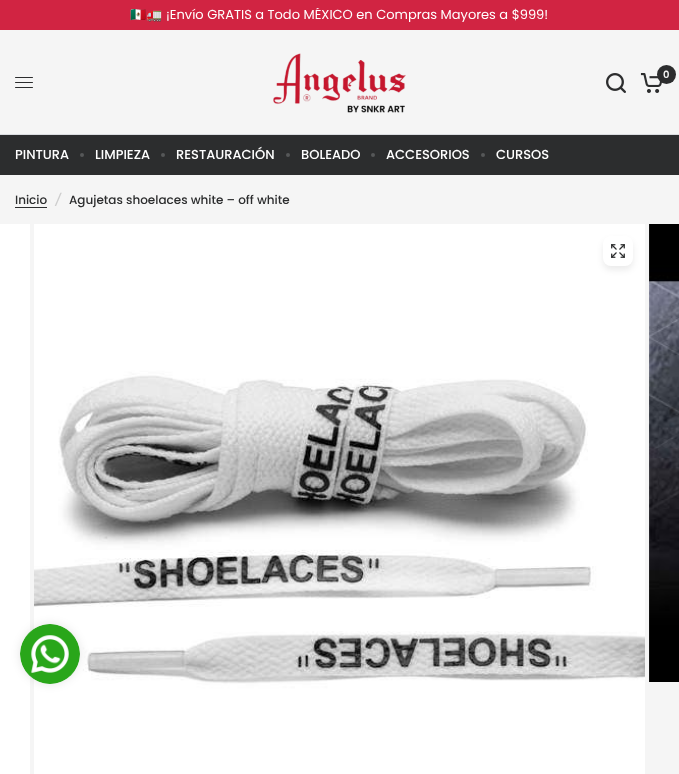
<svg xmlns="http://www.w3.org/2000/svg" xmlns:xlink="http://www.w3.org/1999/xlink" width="679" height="774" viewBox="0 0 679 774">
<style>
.cls-1{font:13px Noto Color Emoji;fill:#ffffff}
.cls-2{font:13px Poppins;fill:#ffffff}
.cls-3{font:600 10px Poppins;fill:#f5f5f5}
.cls-4{font:500 13px Poppins;fill:#ffffff}
.cls-5{font:500 12px Poppins;fill:#2c2d2e}
.cls-6{font:italic 500 12px Poppins;fill:#cdcdcd}
</style>
<defs>
<clipPath id="clip1"><rect x="90" y="8" width="500" height="14"/></clipPath>
</defs>
<rect width="100%" height="100%" fill="#f5f5f5"/>
<rect fill="#d12442" x="0" y="0" width="679" height="30"/>
<image xlink:href="image0.png" x="273" y="53" width="133" height="60"/>
<image xlink:href="image1.png" x="606" y="73" width="20" height="20"/>
<image xlink:href="image2.png" x="640" y="73" width="22" height="20"/>
<circle fill="#2c2d2e" cx="666.5" cy="74.5" r="9.5"/>
<rect fill="#2c2d2e" x="15" y="77" width="18" height="1" rx="0.5"/>
<rect fill="#2c2d2e" x="15" y="82" width="18" height="1" rx="0.5"/>
<rect fill="#2c2d2e" x="15" y="87" width="18" height="1" rx="0.5"/>
<rect fill="#dadce0" x="0" y="134" width="679" height="1"/>
<rect fill="#2c2d2e" x="0" y="135" width="679" height="40"/>
<circle fill="#565758" cx="82" cy="155" r="2"/>
<circle fill="#565758" cx="163" cy="155" r="2"/>
<circle fill="#565758" cx="288" cy="155" r="2"/>
<circle fill="#565758" cx="373" cy="155" r="2"/>
<circle fill="#565758" cx="483" cy="155" r="2"/>
<rect fill="#2c2d2e" x="15" y="207" width="32" height="1"/>
<rect fill="#ffffff" x="0" y="224" width="30" height="550"/>
<image xlink:href="image3.png" x="34" y="224" width="611" height="550"/>
<rect fill="#000000" fill-opacity="0.08" filter="blur(3px)" x="603" y="240" width="30" height="30" rx="8"/>
<rect fill="#ffffff" x="603" y="236" width="30" height="30" rx="8"/>
<image xlink:href="image4.png" x="611" y="244" width="14" height="14"/>
<image xlink:href="image5.png" x="649" y="224" width="30" height="458"/>
<rect fill="#000000" fill-opacity="0.1" filter="blur(5px)" x="20" y="624" width="60" height="60" rx="30"/>
<image xlink:href="image6.png" x="20" y="624" width="60" height="60"/>
<g clip-path="url(#clip1)">
<text class="cls-1" x="130" y="19">🇲🇽🚛</text>
<text class="cls-2" x="166" y="19">¡Envío GRATIS a Todo MÉXICO en Compras Mayores a $999!</text>
</g>
<text class="cls-3" x="663" y="78">0</text>
<text class="cls-4" x="15" y="159">PINTURA</text>
<text class="cls-4" x="95" y="159">LIMPIEZA</text>
<text class="cls-4" x="176" y="159">RESTAURACIÓN</text>
<text class="cls-4" x="301" y="159">BOLEADO</text>
<text class="cls-4" x="386" y="159">ACCESORIOS</text>
<text class="cls-4" x="496" y="159">CURSOS</text>
<text class="cls-5" x="15" y="204">Inicio</text>
<text class="cls-6" x="55" y="204">/</text>
<text class="cls-5" x="69" y="204">Agujetas shoelaces white – off white</text>
</svg>
